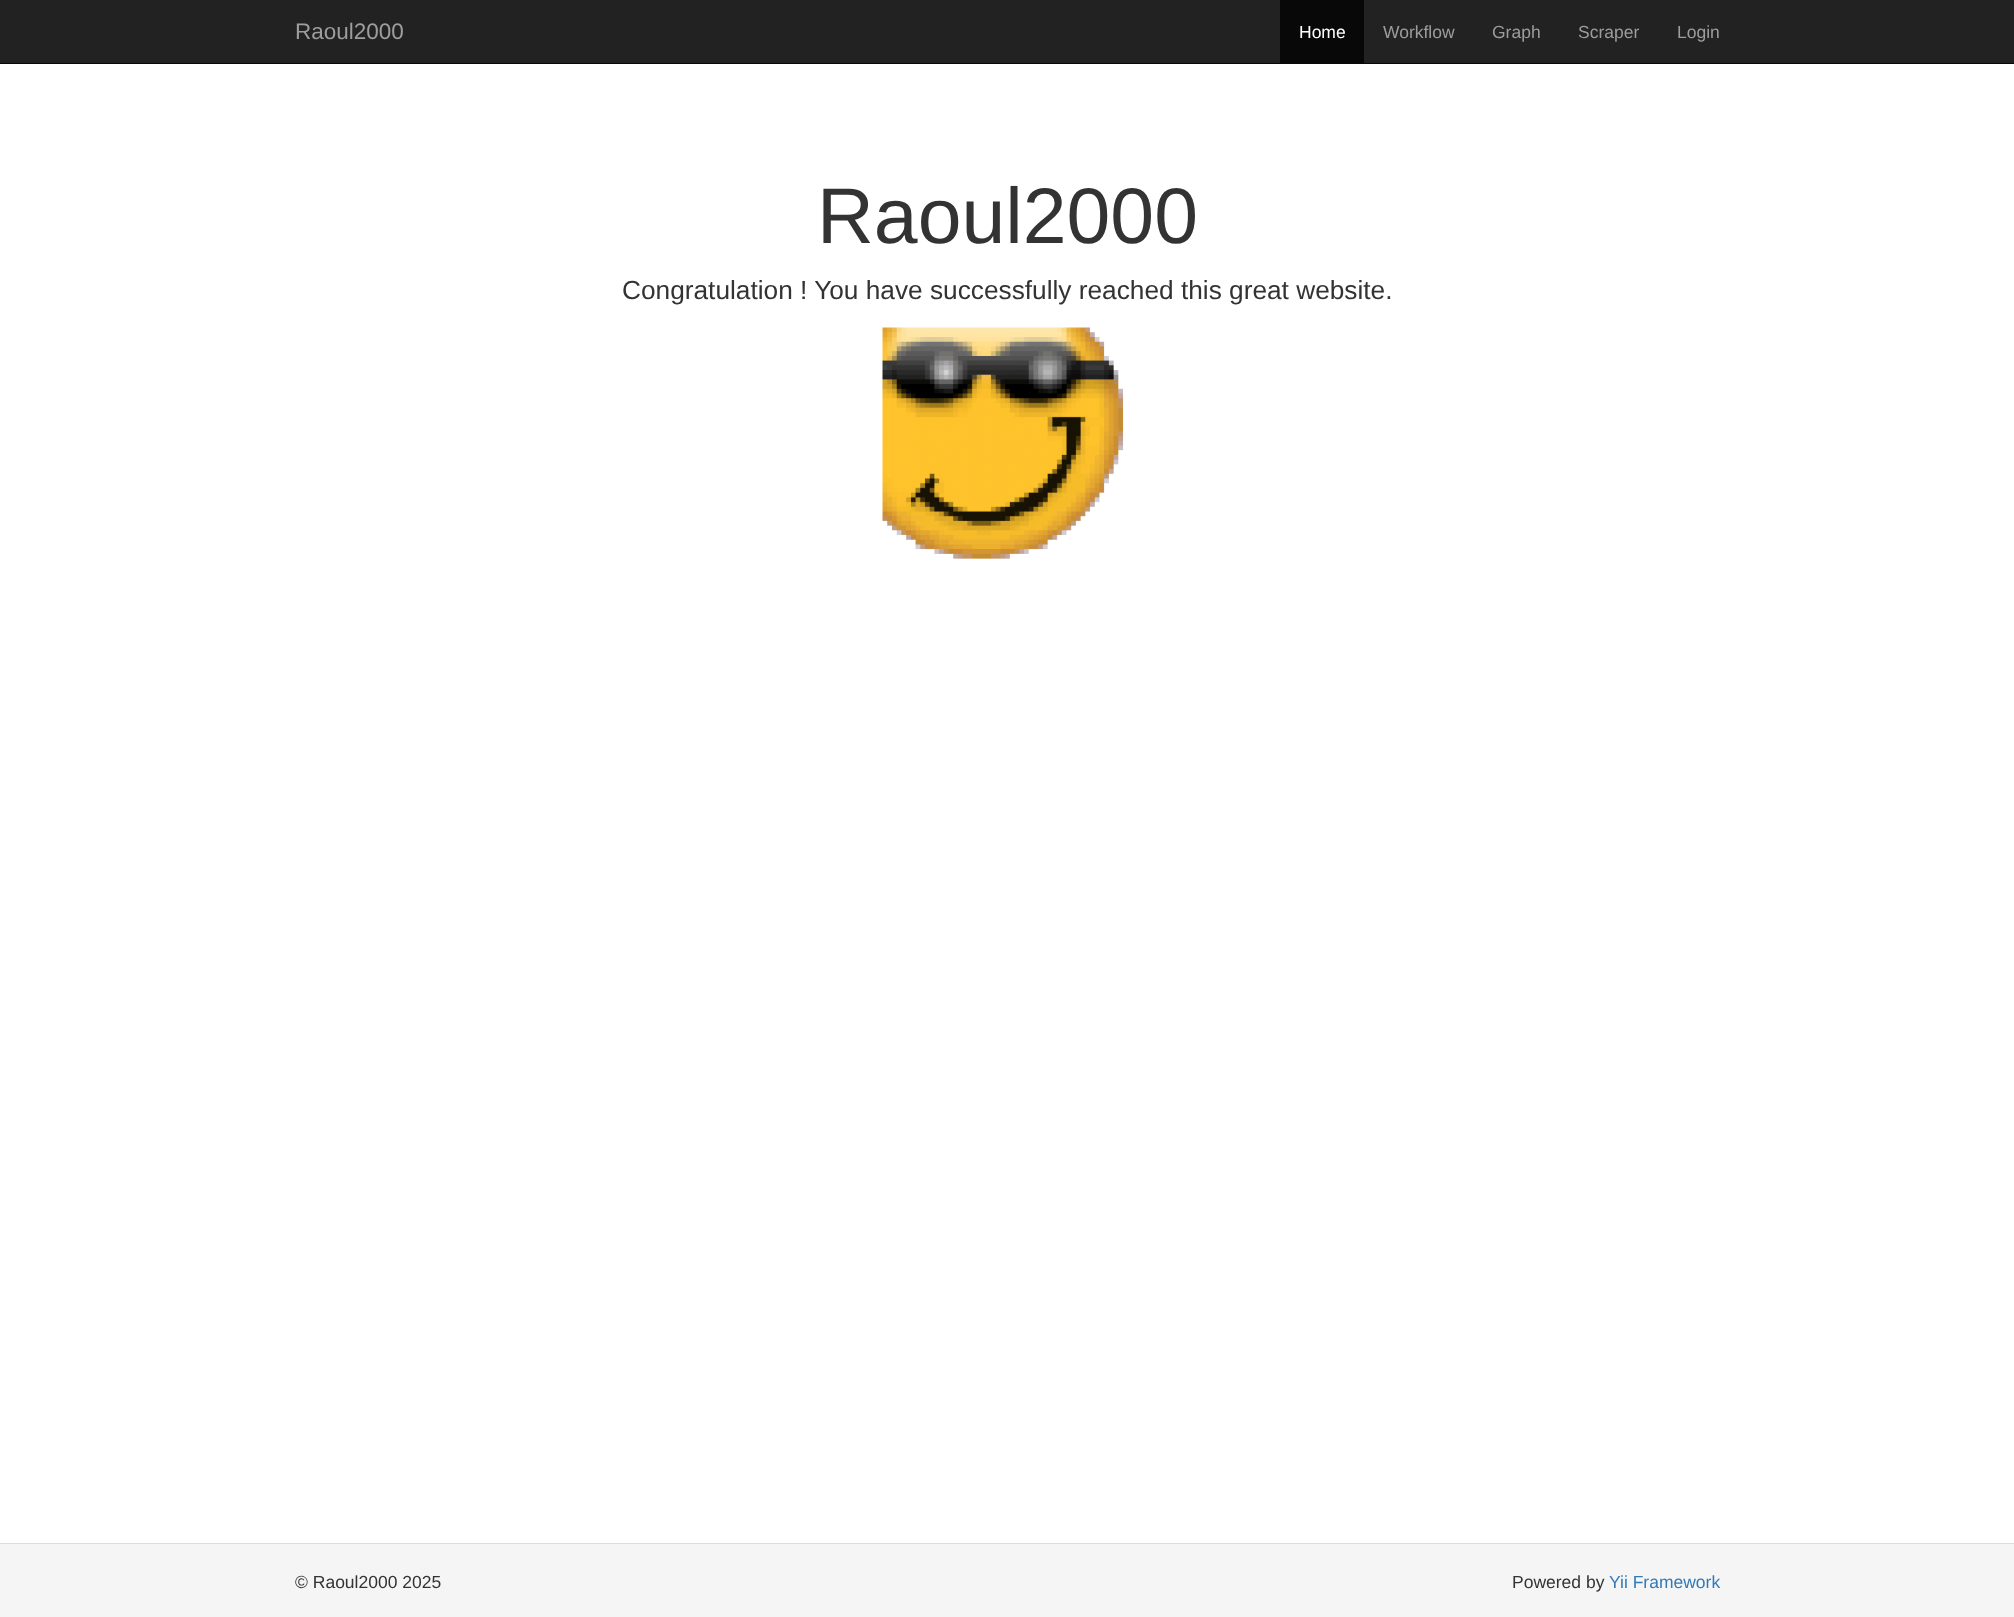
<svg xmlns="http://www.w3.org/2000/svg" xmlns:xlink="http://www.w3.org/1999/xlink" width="2014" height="1617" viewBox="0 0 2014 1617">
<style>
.cls-1{font:22.5px Liberation Sans;fill:#9d9d9d}
.cls-2{font:17.5px Liberation Sans;fill:#ffffff}
.cls-3{font:17.5px Liberation Sans;fill:#9d9d9d}
.cls-4{font:78.75px Liberation Sans;fill:#333333}
.cls-5{font:26.25px Liberation Sans;fill:#333333}
.cls-6{font:17.5px Liberation Sans;fill:#333333}
.cls-7{font:17.5px Liberation Sans;fill:#337ab7}
</style>
<rect width="100%" height="100%" fill="#ffffff"/>
<rect fill="#222222" x="0" y="0" width="2014" height="63"/>
<rect fill="#080808" x="0" y="63" width="2014" height="1"/>
<rect fill="#080808" x="1280" y="0" width="84" height="63"/>
<image xlink:href="image0.png" x="882" y="327" width="242" height="232"/>
<rect fill="#f5f5f5" x="0" y="1544" width="2014" height="73"/>
<rect fill="#dddddd" x="0" y="1543" width="2014" height="1"/>
<text class="cls-1" x="295" y="39">Raoul2000</text>
<text class="cls-2" x="1299" y="38">Home</text>
<text class="cls-3" x="1383" y="38">Workflow</text>
<text class="cls-3" x="1492" y="38">Graph</text>
<text class="cls-3" x="1578" y="38">Scraper</text>
<text class="cls-3" x="1677" y="38">Login</text>
<text class="cls-4" x="817" y="243">Raoul2000</text>
<text class="cls-5" x="622" y="299">Congratulation ! You have successfully reached this great website.</text>
<text class="cls-6" x="295" y="1588">© Raoul2000 2025</text>
<text class="cls-6" x="1512" y="1588">Powered by</text>
<text class="cls-7" x="1609" y="1588">Yii Framework</text>
</svg>
